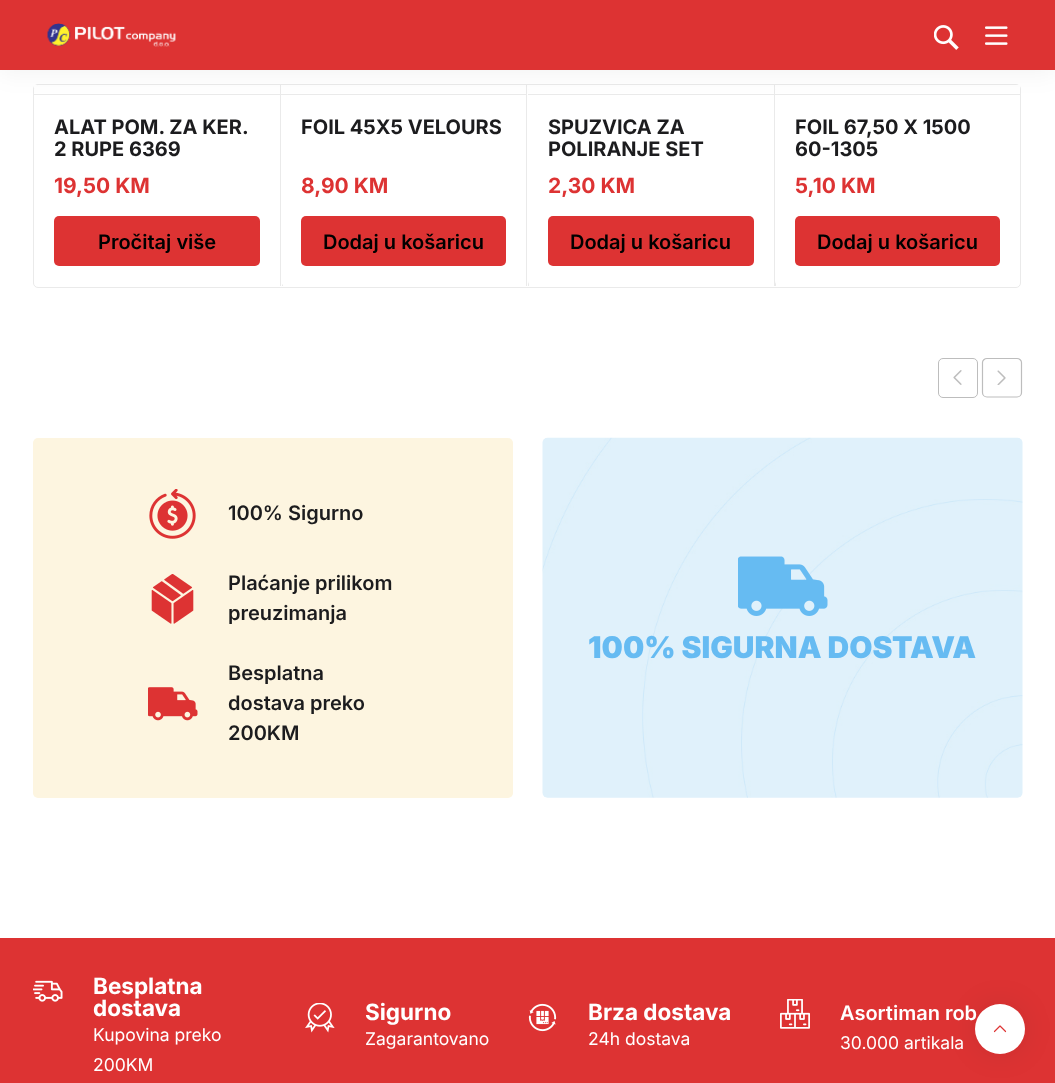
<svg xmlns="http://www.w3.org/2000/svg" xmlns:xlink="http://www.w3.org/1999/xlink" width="1055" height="1083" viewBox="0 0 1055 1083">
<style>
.cls-1{font:bold 20px Inter;fill:#1c1c1e}
.cls-2{font:bold 21px Inter;fill:#dd3333}
.cls-3{font:600 20px Inter;fill:#000000}
.cls-4{font:600 20px Inter;fill:#1c1c1e}
.cls-5{font:900 30px Inter;fill:#66bbf2}
.cls-6{font:bold 22.5px Inter;fill:#ffffff}
.cls-7{font:17.5px Inter;fill:#ffffff}
.cls-8{font:600 20px Inter;fill:#ffffff}
</style>
<defs>
<clipPath id="clip1"><rect x="34" y="85" width="986" height="201"/></clipPath>
</defs>
<rect width="100%" height="100%" fill="#ffffff"/>
<rect fill="none" stroke="#eaeaea" x="33.5" y="84.5" width="987" height="203" rx="4.5"/>
<g clip-path="url(#clip1)">
<rect fill="none" stroke="#eaeaea" x="33.5" y="84.5" width="249" height="203"/>
</g>
<rect fill="#ffffff" x="34" y="85" width="3" height="3"/>
<rect fill="#eaeaea" x="34" y="94" width="246" height="1"/>
<g clip-path="url(#clip1)">
<rect fill="none" stroke="#eaeaea" x="280.5" y="84.5" width="248" height="203"/>
</g>
<rect fill="#ffffff" x="281" y="85" width="245" height="201" rx="5"/>
<rect fill="#ffffff" x="282" y="85" width="1" height="2"/>
<rect fill="#eaeaea" x="281" y="94" width="245" height="1"/>
<g clip-path="url(#clip1)">
<rect fill="none" stroke="#eaeaea" x="526.5" y="84.5" width="249" height="203"/>
</g>
<rect fill="#ffffff" x="528" y="85" width="246" height="201" rx="5"/>
<rect fill="#ffffff" x="528" y="85" width="1" height="4"/>
<rect fill="#eaeaea" x="528" y="94" width="246" height="1"/>
<g clip-path="url(#clip1)">
<rect fill="none" stroke="#eaeaea" x="774.5" y="84.5" width="248" height="203"/>
</g>
<rect fill="#ffffff" x="775" y="85" width="245" height="201" rx="5"/>
<rect fill="#ffffff" x="775" y="85" width="245" height="4"/>
<rect fill="#eaeaea" x="775" y="94" width="245" height="1"/>
<rect fill="#000000" fill-opacity="0.05" filter="blur(12.5px)" x="0" y="3" width="1055" height="70"/>
<rect fill="#dd3333" x="0" y="0" width="1055" height="70"/>
<image xlink:href="image0.png" x="47" y="23" width="129" height="24"/>
<image xlink:href="image1.png" x="934" y="25" width="25" height="25"/>
<image xlink:href="image2.png" x="985" y="26" width="23" height="19"/>
<rect fill="#dd3333" x="54" y="216" width="206" height="50" rx="5"/>
<rect fill="#dd3333" x="301" y="216" width="205" height="50" rx="5"/>
<rect fill="#dd3333" x="548" y="216" width="206" height="50" rx="5"/>
<rect fill="#dd3333" x="795" y="216" width="205" height="50" rx="5"/>
<rect fill="none" stroke="#bdbdbd" x="938.5" y="358.5" width="39" height="39" rx="4.5"/>
<image xlink:href="image3.png" x="953" y="370" width="9" height="15"/>
<path fill="none" stroke="#bdbdbd" stroke-width="1.2" d="M1017 397H987C984.5 397 982.5 395 982.5 392.5V362.5C982.5 360.5 984.5 358.5 987 358.5H1017C1019.5 358.5 1021.5 360.5 1021.5 362.5V392.5C1021.5 395 1019.5 397 1017 397Z"/>
<image xlink:href="image4.png" x="997" y="370" width="9" height="15"/>
<rect fill="#fdf5e0" x="33" y="438" width="480" height="360" rx="5"/>
<image xlink:href="image5.png" x="149" y="489" width="47" height="50"/>
<image xlink:href="image6.png" x="151" y="574" width="43" height="50"/>
<image xlink:href="image7.png" x="148" y="687" width="50" height="34"/>
<image xlink:href="image8.png" x="542" y="437" width="481" height="361"/>
<image xlink:href="image9.png" x="738" y="556" width="90" height="60"/>
<rect fill="#dd3333" x="0" y="938" width="1055" height="145"/>
<image xlink:href="image10.png" x="33" y="980" width="30" height="22"/>
<image xlink:href="image11.png" x="305" y="1003" width="30" height="30"/>
<image xlink:href="image12.png" x="528" y="1003" width="29" height="29"/>
<image xlink:href="image13.png" x="780" y="999" width="30" height="30"/>
<rect fill="#000000" fill-opacity="0.08" filter="blur(15px)" x="975" y="1004" width="50" height="50" rx="25"/>
<circle fill="#ffffff" cx="1000" cy="1029" r="25"/>
<image xlink:href="image14.png" x="993" y="1025" width="14" height="8"/>
<text class="cls-1"><tspan x="54" y="134">ALAT POM. ZA KER.</tspan><tspan x="54" y="156">2 RUPE 6369</tspan></text>
<text class="cls-2" x="54" y="193">19,50 KM</text>
<text class="cls-3" x="98" y="249">Pročitaj više</text>
<text class="cls-1" x="301" y="134">FOIL 45X5 VELOURS</text>
<text class="cls-2" x="301" y="193">8,90 KM</text>
<text class="cls-3" x="323" y="249">Dodaj u košaricu</text>
<text class="cls-1"><tspan x="548" y="134">SPUZVICA ZA</tspan><tspan x="548" y="156">POLIRANJE SET</tspan></text>
<text class="cls-2" x="548" y="193">2,30 KM</text>
<text class="cls-3" x="570" y="249">Dodaj u košaricu</text>
<text class="cls-1"><tspan x="795" y="134">FOIL 67,50 X 1500</tspan><tspan x="795" y="156">60-1305</tspan></text>
<text class="cls-2" x="795" y="193">5,10 KM</text>
<text class="cls-3" x="817" y="249">Dodaj u košaricu</text>
<text class="cls-4" x="228" y="520">100% Sigurno</text>
<text class="cls-4"><tspan x="228" y="590">Plaćanje prilikom</tspan><tspan x="228" y="620">preuzimanja</tspan></text>
<text class="cls-4"><tspan x="228" y="680">Besplatna</tspan><tspan x="228" y="710">dostava preko</tspan><tspan x="228" y="740">200KM</tspan></text>
<text class="cls-5" x="588" y="658">100% SIGURNA DOSTAVA</text>
<text class="cls-6"><tspan x="93" y="994">Besplatna</tspan><tspan x="93" y="1016">dostava</tspan></text>
<text class="cls-7"><tspan x="93" y="1041">Kupovina preko</tspan><tspan x="93" y="1071">200KM</tspan></text>
<text class="cls-6" x="365" y="1020">Sigurno</text>
<text class="cls-7" x="365" y="1045">Zagarantovano</text>
<text class="cls-6" x="588" y="1020">Brza dostava</text>
<text class="cls-7" x="588" y="1045">24h dostava</text>
<text class="cls-8" x="840" y="1020">Asortiman rob</text>
<text class="cls-7" x="840" y="1049">30.000 artikala</text>
</svg>
